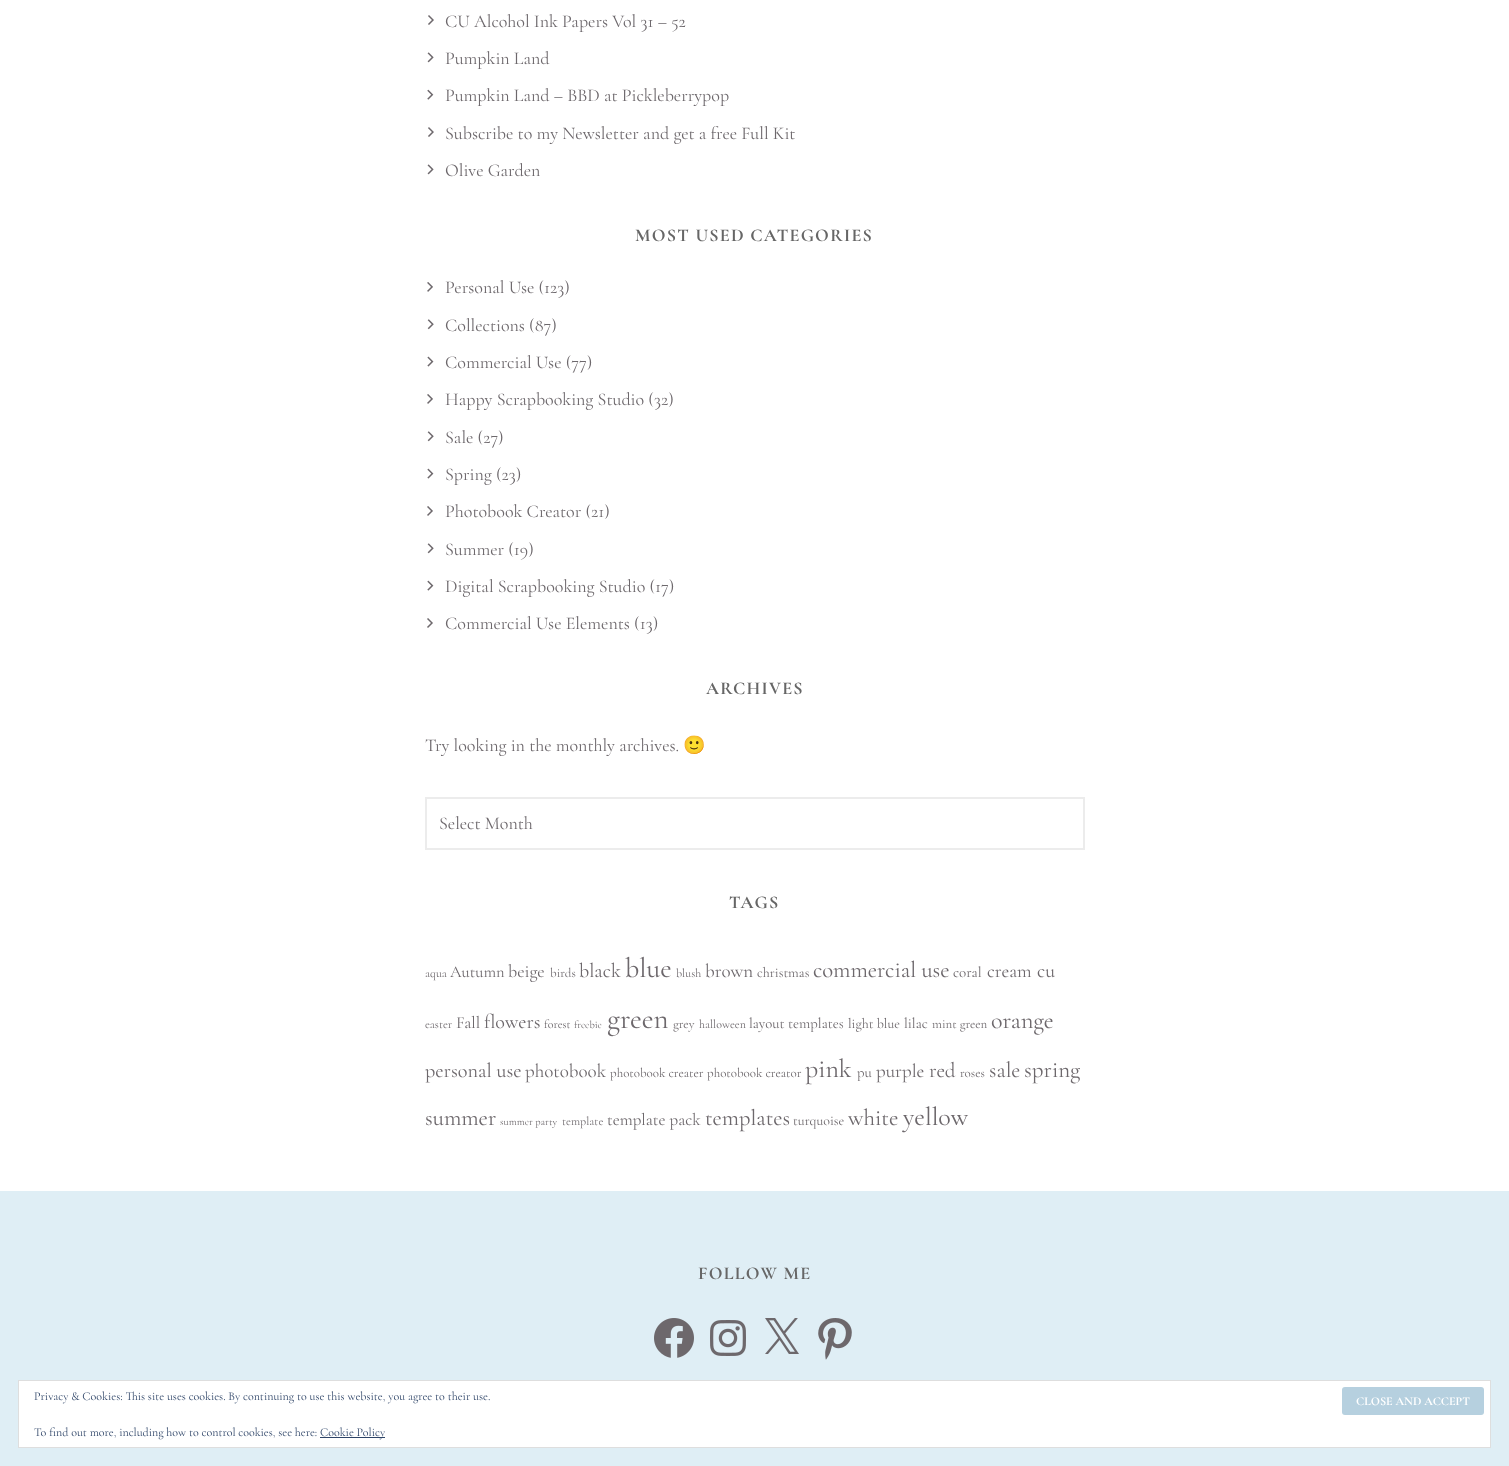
<svg xmlns="http://www.w3.org/2000/svg" xmlns:xlink="http://www.w3.org/1999/xlink" width="1509" height="1466" viewBox="0 0 1509 1466">
<style>
.cls-1{font:18px Cormorant Garamond;fill:#6d686c}
.cls-2{font:bold 18px Cormorant Garamond;letter-spacing:1.25px;fill:#666666}
.cls-3{font:18px Noto Color Emoji;fill:#6d686c}
.cls-4{font:12px Cormorant Garamond;fill:#6d686c}
.cls-5{font:16.5px Cormorant Garamond;fill:#6d686c}
.cls-6{font:13px Cormorant Garamond;fill:#6d686c}
.cls-7{font:20px Cormorant Garamond;fill:#6d686c}
.cls-8{font:28px Cormorant Garamond;fill:#6d686c}
.cls-9{font:19px Cormorant Garamond;fill:#6d686c}
.cls-10{font:14px Cormorant Garamond;fill:#6d686c}
.cls-11{font:22.75px Cormorant Garamond;fill:#6d686c}
.cls-12{font:15px Cormorant Garamond;fill:#6d686c}
.cls-13{font:17px Cormorant Garamond;fill:#6d686c}
.cls-14{font:10.5px Cormorant Garamond;fill:#6d686c}
.cls-15{font:29px Cormorant Garamond;fill:#6d686c}
.cls-16{font:14.75px Cormorant Garamond;fill:#6d686c}
.cls-17{font:24px Cormorant Garamond;fill:#6d686c}
.cls-18{font:20.25px Cormorant Garamond;fill:#6d686c}
.cls-19{font:26px Cormorant Garamond;fill:#6d686c}
.cls-20{font:21px Cormorant Garamond;fill:#6d686c}
.cls-21{font:22px Cormorant Garamond;fill:#6d686c}
.cls-22{font:23px Cormorant Garamond;fill:#6d686c}
.cls-23{font:22.5px Cormorant Garamond;fill:#6d686c}
.cls-24{font:12px Cormorant Garamond;fill:#2e4467}
.cls-25{font:bold 12px Cormorant Garamond;fill:#ffffff}
</style>
<rect width="100%" height="100%" fill="#ffffff"/>
<image xlink:href="image0.png" x="428" y="15" width="6" height="10"/>
<image xlink:href="image1.png" x="427" y="52" width="7" height="11"/>
<image xlink:href="image2.png" x="427" y="89" width="7" height="11"/>
<image xlink:href="image3.png" x="428" y="127" width="6" height="10"/>
<image xlink:href="image4.png" x="427" y="164" width="7" height="11"/>
<image xlink:href="image5.png" x="427" y="282" width="6" height="10"/>
<image xlink:href="image6.png" x="427" y="319" width="7" height="11"/>
<image xlink:href="image7.png" x="427" y="356" width="7" height="11"/>
<image xlink:href="image8.png" x="427" y="394" width="6" height="10"/>
<image xlink:href="image9.png" x="427" y="431" width="7" height="11"/>
<image xlink:href="image10.png" x="427" y="468" width="7" height="11"/>
<image xlink:href="image11.png" x="427" y="506" width="6" height="10"/>
<image xlink:href="image12.png" x="427" y="543" width="7" height="11"/>
<image xlink:href="image13.png" x="427" y="580" width="7" height="11"/>
<image xlink:href="image14.png" x="427" y="618" width="6" height="10"/>
<rect fill="none" stroke="#ececec" stroke-width="2" x="426" y="798" width="658" height="51"/>
<rect fill="#dfeef5" x="0" y="1191" width="1509" height="275"/>
<image xlink:href="image15.png" x="654" y="1318" width="40" height="40"/>
<image xlink:href="image16.png" x="710" y="1320" width="36" height="36"/>
<image xlink:href="image17.png" x="765" y="1318" width="34" height="36"/>
<image xlink:href="image18.png" x="818" y="1318" width="34" height="42"/>
<rect fill="#ffffff" stroke="#dedede" x="18.5" y="1380.5" width="1472" height="67"/>
<rect fill="#b6d0df" x="1342" y="1387" width="142" height="28" rx="3"/>
<rect fill="#2e4467" x="320" y="1437" width="65" height="1"/>
<text class="cls-1" x="445" y="27">CU Alcohol Ink Papers Vol 31 – 52</text>
<text class="cls-1" x="445" y="64">Pumpkin Land</text>
<text class="cls-1" x="445" y="101">Pumpkin Land – BBD at Pickleberrypop</text>
<text class="cls-1" x="445" y="139">Subscribe to my Newsletter and get a free Full Kit</text>
<text class="cls-1" x="445" y="176">Olive Garden</text>
<text class="cls-2" x="635" y="241">MOST USED CATEGORIES</text>
<text class="cls-1" x="445" y="293">Personal Use (123)</text>
<text class="cls-1" x="445" y="331">Collections (87)</text>
<text class="cls-1" x="445" y="368">Commercial Use (77)</text>
<text class="cls-1" x="445" y="405">Happy Scrapbooking Studio (32)</text>
<text class="cls-1" x="445" y="443">Sale (27)</text>
<text class="cls-1" x="445" y="480">Spring (23)</text>
<text class="cls-1" x="445" y="517">Photobook Creator (21)</text>
<text class="cls-1" x="445" y="555">Summer (19)</text>
<text class="cls-1" x="445" y="592">Digital Scrapbooking Studio (17)</text>
<text class="cls-1" x="445" y="629">Commercial Use Elements (13)</text>
<text class="cls-2" x="706" y="694">ARCHIVES</text>
<text class="cls-1" x="425" y="751">Try looking in the monthly archives.</text>
<text class="cls-3" x="683" y="751">🙂</text>
<text class="cls-1" x="439" y="829">Select Month</text>
<text class="cls-2" x="729" y="908">TAGS</text>
<text class="cls-4" x="425" y="977">aqua</text>
<text class="cls-5" x="450" y="977">Autumn</text>
<text class="cls-1" x="508" y="977">beige</text>
<text class="cls-6" x="550" y="977">birds</text>
<text class="cls-7" x="579" y="977">black</text>
<text class="cls-8" x="625" y="977">blue</text>
<text class="cls-4" x="676" y="977">blush</text>
<text class="cls-9" x="705" y="977">brown</text>
<text class="cls-10" x="757" y="977">christmas</text>
<text class="cls-11" x="813" y="977">commercial use</text>
<text class="cls-12" x="953" y="977">coral</text>
<text class="cls-9" x="987" y="977">cream</text>
<text class="cls-7" x="1037" y="977">cu</text>
<text class="cls-4" x="425" y="1028">easter</text>
<text class="cls-13" x="456" y="1028">Fall</text>
<text class="cls-7" x="484" y="1028">flowers</text>
<text class="cls-4" x="544" y="1028">forest</text>
<text class="cls-14" x="574" y="1028">freebie</text>
<text class="cls-15" x="607" y="1028">green</text>
<text class="cls-6" x="673" y="1028">grey</text>
<text class="cls-4" x="699" y="1028">halloween</text>
<text class="cls-16" x="749" y="1028">layout templates</text>
<text class="cls-10" x="848" y="1028">light blue</text>
<text class="cls-16" x="904" y="1028">lilac</text>
<text class="cls-6" x="932" y="1028">mint green</text>
<text class="cls-17" x="991" y="1028">orange</text>
<text class="cls-18" x="425" y="1077">personal use</text>
<text class="cls-9" x="525" y="1077">photobook</text>
<text class="cls-6" x="610" y="1077">photobook creater</text>
<text class="cls-6" x="707" y="1077">photobook creator</text>
<text class="cls-19" x="805" y="1077">pink</text>
<text class="cls-16" x="857" y="1077">pu</text>
<text class="cls-9" x="876" y="1077">purple</text>
<text class="cls-20" x="929" y="1077">red</text>
<text class="cls-6" x="960" y="1077">roses</text>
<text class="cls-21" x="989" y="1077">sale</text>
<text class="cls-22" x="1024" y="1077">spring</text>
<text class="cls-11" x="425" y="1125">summer</text>
<text class="cls-14" x="500" y="1125">summer party</text>
<text class="cls-4" x="562" y="1125">template</text>
<text class="cls-13" x="607" y="1125">template pack</text>
<text class="cls-23" x="705" y="1125">templates</text>
<text class="cls-10" x="793" y="1125">turquoise</text>
<text class="cls-22" x="848" y="1125">white</text>
<text class="cls-19" x="903" y="1125">yellow</text>
<text class="cls-2" x="698" y="1279">FOLLOW ME</text>
<text class="cls-24" x="34" y="1400">Privacy &amp; Cookies: This site uses cookies. By continuing to use this website, you agree to their use.</text>
<text class="cls-25" x="1356" y="1405">CLOSE AND ACCEPT</text>
<text class="cls-24" x="34" y="1436">To find out more, including how to control cookies, see here:</text>
<text class="cls-24" x="320" y="1436">Cookie Policy</text>
</svg>
